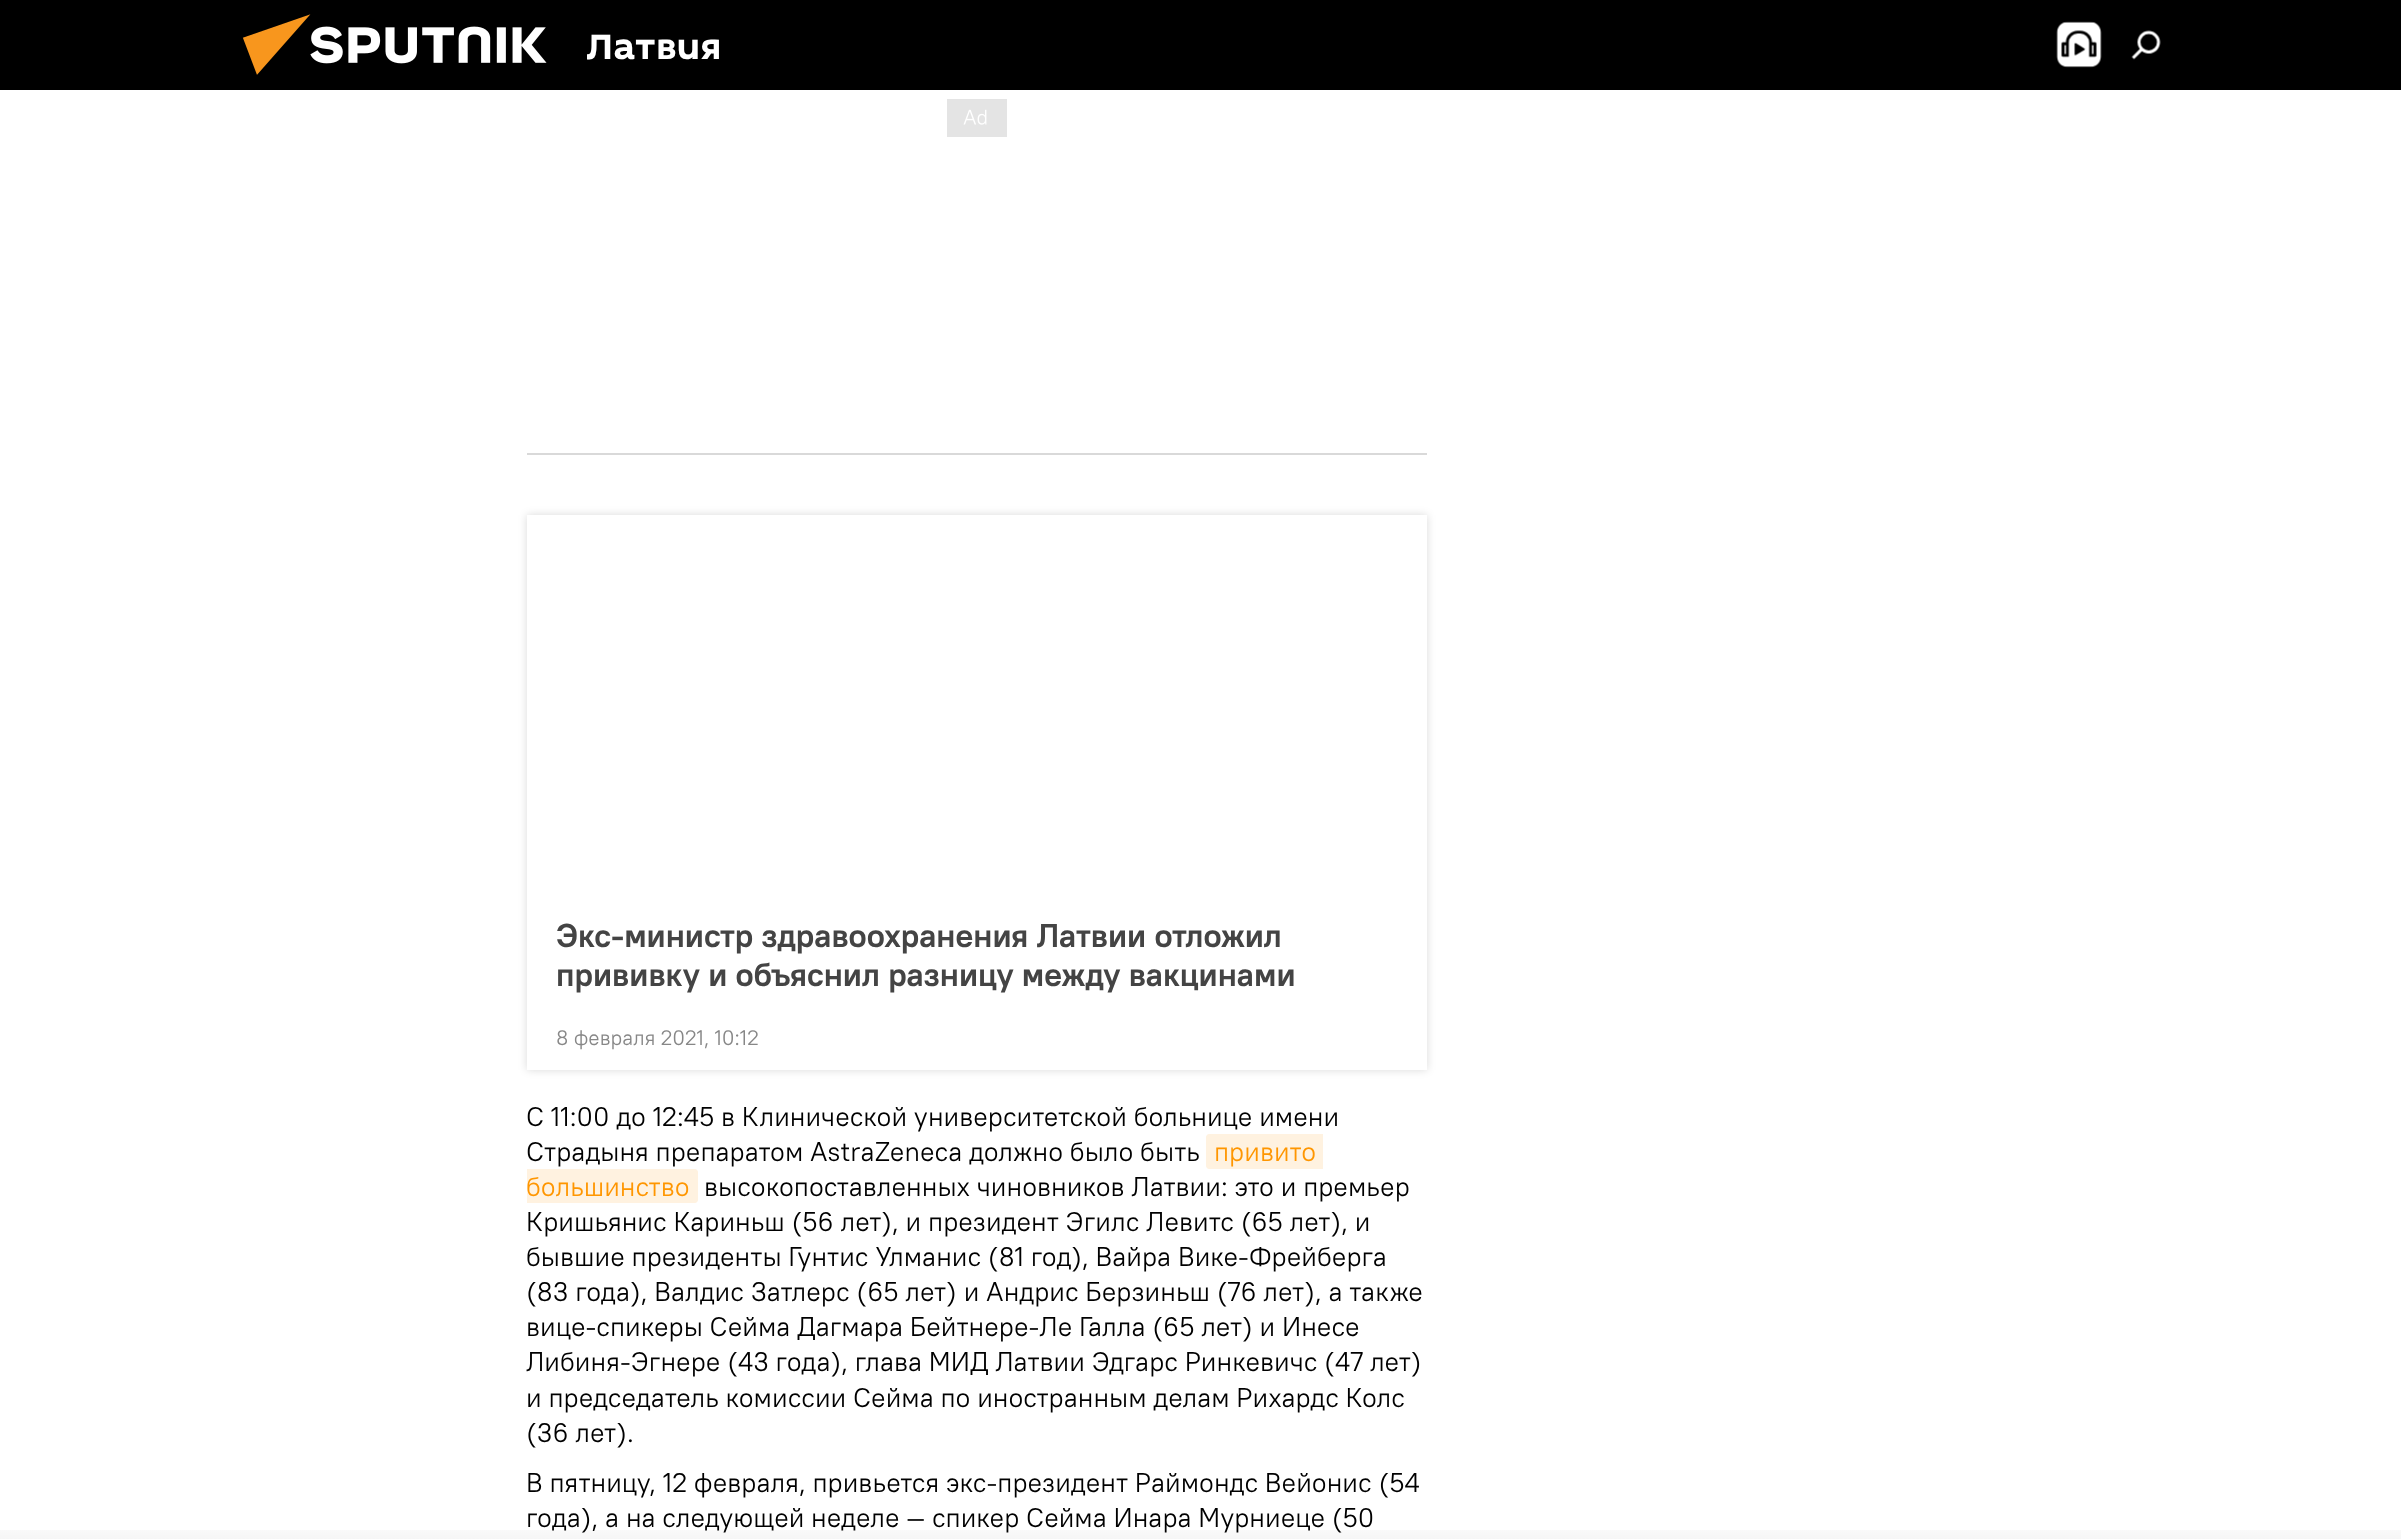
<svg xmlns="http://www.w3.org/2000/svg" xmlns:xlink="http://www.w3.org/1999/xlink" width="2401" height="1539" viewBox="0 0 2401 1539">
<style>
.cls-1{font:bold 34.5px 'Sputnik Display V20';fill:#ffffff}
.cls-2{font:bold 33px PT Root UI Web;fill:#444444}
.cls-3{font:21px PT Root UI Web;fill:#878787}
.cls-4{font:27px PT Root UI Web;fill:#000000}
.cls-5{font:27px PT Root UI Web;fill:#ff9600}
</style>
<defs>
<linearGradient id="g1" gradientUnits="userSpaceOnUse" x1="1201" y1="1516" x2="1201" y2="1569"><stop offset="0" stop-color="#000000" stop-opacity="0"/><stop offset="0.61" stop-color="#000000" stop-opacity="0.05"/><stop offset="0.86" stop-color="#000000" stop-opacity="0.09"/><stop offset="1" stop-color="#000000" stop-opacity="0.18"/></linearGradient>
<clipPath id="clip1"><rect x="587" y="17" width="141" height="60" rx="9"/></clipPath>
</defs>
<rect width="100%" height="100%" fill="#ffffff"/>
<rect fill="#000000" x="0" y="0" width="2401" height="90"/>
<image xlink:href="image0.png" x="242" y="14" width="305" height="61"/>
<image xlink:href="image1.png" x="2056" y="21" width="46" height="47"/>
<image xlink:href="image2.png" x="2131" y="30" width="30" height="30"/>
<rect fill="#d9d9d9" x="527" y="453" width="900" height="2"/>
<rect fill="#e4e4e4" x="947" y="99" width="60" height="38"/>
<image xlink:href="image3.png" x="963" y="109" width="24" height="16"/>
<rect fill="#000000" fill-opacity="0.15" filter="blur(4.5px)" x="527" y="515" width="900" height="555"/>
<rect fill="#ffffff" x="527" y="515" width="900" height="555"/>
<path fill="#fff2e0" d="M1209 1134H1316V1169H1209C1207.5 1169 1206 1167.5 1206 1166V1137C1206 1135.5 1207.5 1134 1209 1134Z"/>
<rect fill="#fff2e0" x="1316" y="1134" width="7" height="35"/>
<path fill="#fff2e0" d="M527 1169H695C696.5 1169 698 1170.5 698 1172V1200C698 1201.5 696.5 1203 695 1203H527Z"/>
<rect fill="url(#g1)" x="0" y="1530" width="2401" height="9"/>
<g clip-path="url(#clip1)">
<text class="cls-1" x="586" y="59">Латвия</text>
</g>
<text class="cls-2"><tspan x="556" y="947">Экс-министр здравоохранения Латвии отложил</tspan><tspan x="556" y="986">прививку и объяснил разницу между вакцинами</tspan></text>
<text class="cls-3" x="556" y="1045">8 февраля 2021, 10:12</text>
<text class="cls-4"><tspan x="526" y="1126">С 11:00 до 12:45 в Клинической университетской больнице имени</tspan><tspan x="526" y="1161">Страдыня препаратом AstraZeneca должно было быть</tspan></text>
<text class="cls-5" x="1214" y="1161">привито</text>
<text class="cls-5" x="526" y="1196">большинство</text>
<text class="cls-4" x="704" y="1196">высокопоставленных чиновников Латвии: это и премьер</text>
<text class="cls-4"><tspan x="526" y="1231">Кришьянис Кариньш (56 лет), и президент Эгилс Левитс (65 лет), и</tspan><tspan x="526" y="1266">бывшие президенты Гунтис Улманис (81 год), Вайра Вике-Фрейберга</tspan><tspan x="526" y="1301">(83 года), Валдис Затлерс (65 лет) и Андрис Берзиньш (76 лет), а также</tspan><tspan x="526" y="1336">вице-спикеры Сейма Дагмара Бейтнере-Ле Галла (65 лет) и Инесе</tspan><tspan x="526" y="1371">Либиня-Эгнере (43 года), глава МИД Латвии Эдгарс Ринкевичс (47 лет)</tspan><tspan x="526" y="1407">и председатель комиссии Сейма по иностранным делам Рихардс Колс</tspan><tspan x="526" y="1442">(36 лет).</tspan><tspan x="526" y="1492">В пятницу, 12 февраля, привьется экс-президент Раймондс Вейонис (54</tspan><tspan x="526" y="1527">года), а на следующей неделе — спикер Сейма Инара Мурниеце (50</tspan></text>
</svg>
